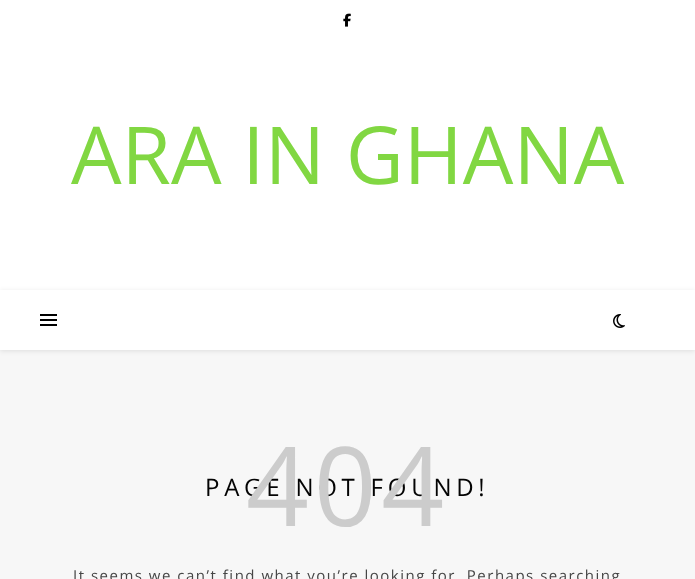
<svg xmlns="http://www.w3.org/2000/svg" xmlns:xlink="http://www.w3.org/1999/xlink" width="695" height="579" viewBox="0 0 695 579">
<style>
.cls-1{font:80px Open Sans;fill:#81d742}
.cls-2{font:24px Open Sans;letter-spacing:4.75px;fill:#030303}
.cls-3{font:110px Open Sans;letter-spacing:4.75px;fill:#cccccc}
.cls-4{font:15px Open Sans;letter-spacing:1.5px;fill:#464646}
</style>
<rect width="100%" height="100%" fill="#f7f7f7"/>
<rect fill="#ffffff" x="0" y="0" width="695" height="290"/>
<image xlink:href="image0.png" x="343" y="13" width="8" height="14"/>
<rect fill="#000000" fill-opacity="0.1" filter="blur(2.5px)" x="0" y="291" width="695" height="60"/>
<rect fill="#ffffff" x="0" y="290" width="695" height="60"/>
<rect fill="#000000" x="40" y="314" width="17" height="2"/>
<rect fill="#000000" x="40" y="319" width="17" height="2"/>
<rect fill="#000000" x="40" y="324" width="17" height="2"/>
<image xlink:href="image1.png" x="613" y="314" width="12" height="14"/>
<text class="cls-1" x="71" y="184">ARA IN GHANA</text>
<text class="cls-2" x="205" y="496">PAGE NOT FOUND!</text>
<text class="cls-3" x="246" y="526">404</text>
<text class="cls-4" x="73" y="581">It seems we can’t find what you’re looking for. Perhaps searching</text>
</svg>
